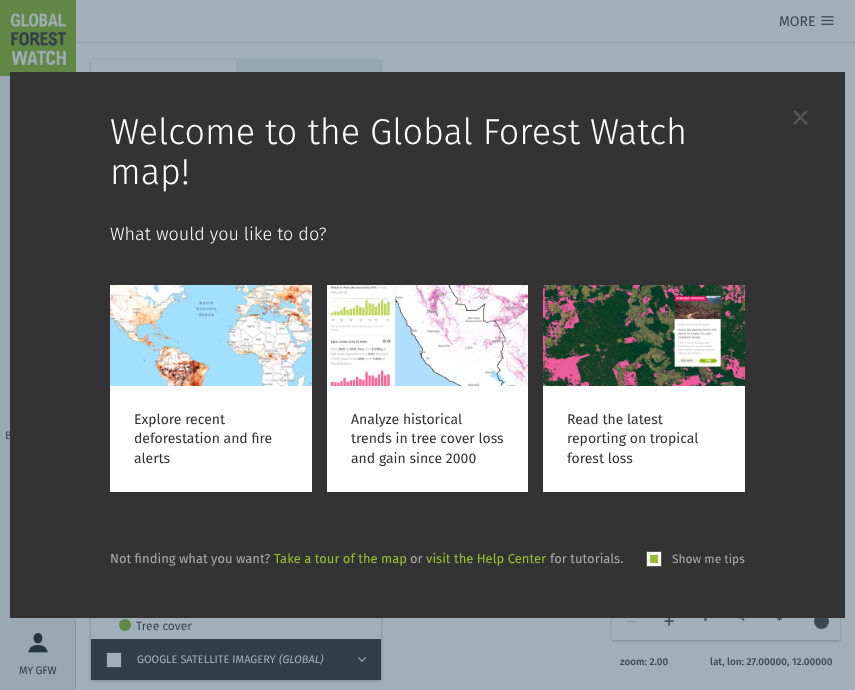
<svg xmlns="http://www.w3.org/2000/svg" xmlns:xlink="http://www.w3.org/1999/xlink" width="855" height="690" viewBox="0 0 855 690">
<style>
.cls-1{font:14px Fira Sans;fill:#3a4953}
.cls-2{font:11px Fira Sans;letter-spacing:-0.25px;fill:#33424c}
.cls-3{font:12px Fira Sans;fill:#3a4953}
.cls-4{font:11px Fira Sans;fill:#a0afb9}
.cls-5{font:italic 11px Fira Sans;fill:#a0afb9}
.cls-6{font:500 10px Fira Sans;fill:#3a4953}
.cls-7{font:300 36px Fira Sans;fill:#ffffff}
.cls-8{font:300 18px Fira Sans;fill:#ffffff}
.cls-9{font:14px Fira Sans;fill:#333333}
.cls-10{font:13px Fira Sans;fill:#aaaaaa}
.cls-11{font:13px Fira Sans;fill:#97be32}
.cls-12{font:12px Fira Sans;fill:#aaaaaa}
</style>
<defs>
<clipPath id="clip1"><path d="M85 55H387V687H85ZM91 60H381V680H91Z" clip-rule="evenodd"/></clipPath>
<clipPath id="clip2"><path d="M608 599H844V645H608ZM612 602H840V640H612Z" clip-rule="evenodd"/></clipPath>
</defs>
<rect width="100%" height="100%" fill="#a0afb9"/>
<rect fill="#909fa6" x="76" y="42" width="779" height="1"/>
<image xlink:href="image0.png" x="0" y="0" width="76" height="76"/>
<image xlink:href="image1.png" x="821" y="16" width="13" height="9"/>
<rect fill="#98a7b1" x="0" y="76" width="75" height="614"/>
<image xlink:href="image2.png" x="28" y="633" width="20" height="20"/>
<rect fill="#8c9ba5" x="75" y="618" width="1" height="72"/>
<g clip-path="url(#clip1)">
<rect fill="#071620" fill-opacity="0.25" filter="blur(1.5px)" x="91" y="61" width="290" height="620"/>
</g>
<rect fill="#97a7b1" x="236" y="60" width="145" height="12"/>
<circle fill="#618745" cx="125" cy="625" r="6"/>
<rect fill="#303f49" x="91" y="639" width="290" height="41"/>
<rect fill="#a0afb9" stroke="#3a4953" x="106.5" y="652.5" width="15" height="15"/>
<image xlink:href="image3.png" x="358" y="657" width="8" height="5"/>
<g clip-path="url(#clip2)">
<rect fill="#071620" fill-opacity="0.25" filter="blur(1px)" x="612" y="603" width="228" height="38"/>
</g>
<image xlink:href="image4.png" x="664" y="618" width="10" height="8"/>
<image xlink:href="image5.png" x="703" y="618" width="4" height="3"/>
<image xlink:href="image6.png" x="739" y="618" width="6" height="3"/>
<image xlink:href="image7.png" x="777" y="618" width="5" height="3"/>
<circle fill="#3a4953" cx="821.5" cy="621.5" r="7.5"/>
<rect fill="#8b9ba5" x="627" y="621" width="9" height="1"/>
<text class="cls-1" x="779" y="26">MORE</text>
<text class="cls-2" x="5" y="439">B</text>
<text class="cls-2" x="19" y="674">MY GFW</text>
<text class="cls-3" x="136" y="630">Tree cover</text>
<text class="cls-4" x="137" y="663">GOOGLE SATELLITE IMAGERY</text>
<text class="cls-5" x="279" y="663">(GLOBAL)</text>
<text class="cls-6" x="620" y="665">zoom: 2.00</text>
<text class="cls-6" x="710" y="665">lat, lon: 27.00000, 12.00000</text>
<rect fill="#333333" x="10" y="72" width="835" height="546"/>
<text class="cls-7"><tspan x="110" y="144">Welcome to the Global Forest Watch</tspan><tspan x="110" y="184">map!</tspan></text>
<image xlink:href="image8.png" x="793" y="110" width="15" height="15"/>
<text class="cls-8" x="110" y="240">What would you like to do?</text>
<rect fill="#ffffff" x="110" y="386" width="202" height="106"/>
<image xlink:href="image9.png" x="110" y="285" width="202" height="101"/>
<text class="cls-9"><tspan x="134" y="424">Explore recent</tspan><tspan x="134" y="443">deforestation and fire</tspan><tspan x="134" y="463">alerts</tspan></text>
<rect fill="#ffffff" x="327" y="285" width="201" height="207"/>
<image xlink:href="image10.png" x="330" y="285" width="198" height="101"/>
<text class="cls-9"><tspan x="351" y="424">Analyze historical</tspan><tspan x="351" y="443">trends in tree cover loss</tspan><tspan x="351" y="463">and gain since 2000</tspan></text>
<rect fill="#ffffff" x="543" y="386" width="202" height="106"/>
<image xlink:href="image11.png" x="543" y="285" width="202" height="101"/>
<text class="cls-9"><tspan x="567" y="424">Read the latest</tspan><tspan x="567" y="443">reporting on tropical</tspan><tspan x="567" y="463">forest loss</tspan></text>
<text class="cls-10" x="110" y="563">Not finding what you want?</text>
<text class="cls-11" x="274" y="563">Take a tour of the map</text>
<text class="cls-10" x="410" y="563">or</text>
<text class="cls-11" x="426" y="563">visit the Help Center</text>
<text class="cls-10" x="550" y="563">for tutorials.</text>
<rect fill="#ffffff" stroke="#555555" x="646.5" y="551.5" width="15" height="15"/>
<rect fill="#97be32" x="650" y="555" width="8" height="8"/>
<text class="cls-12" x="672" y="563">Show me tips</text>
</svg>
